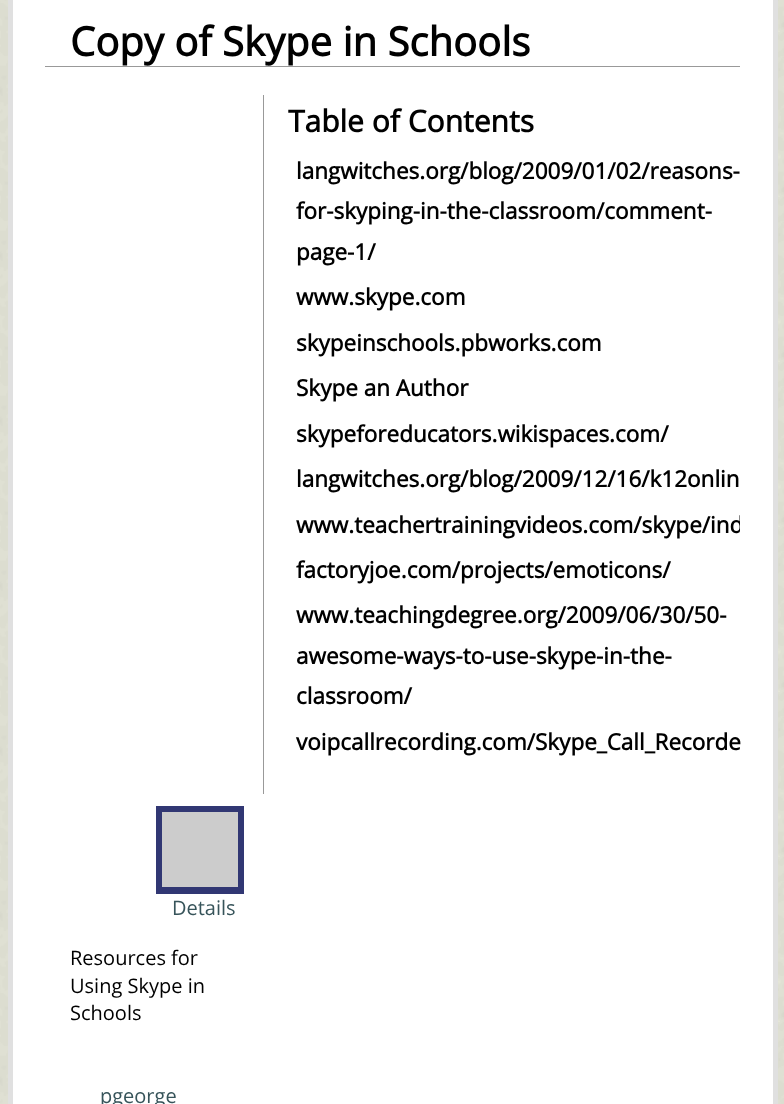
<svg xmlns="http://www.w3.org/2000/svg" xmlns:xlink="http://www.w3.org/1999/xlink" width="784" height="1104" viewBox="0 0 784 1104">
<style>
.cls-1{font:bold 40px Open Sans;fill:#000000}
.cls-2{font:bold 30px Open Sans;fill:#000000}
.cls-3{font:bold 22.5px Open Sans;fill:#000000}
.cls-4{font:20px Open Sans;fill:#37545a}
.cls-5{font:20px Open Sans;fill:#000000}
</style>
<defs>
<clipPath id="clip1"><rect x="289" y="145" width="451" height="649"/></clipPath>
</defs>
<rect width="100%" height="100%" fill="#ffffff"/>
<image xlink:href="image0.png" x="0" y="0" width="784" height="1104"/>
<rect fill="#ffffff" x="13" y="0" width="760" height="1104"/>
<rect fill="#e0e0e0" x="773" y="0" width="5" height="1104"/>
<rect fill="#e0e0e0" x="8" y="0" width="5" height="1104"/>
<rect fill="#999999" x="45" y="66" width="695" height="1"/>
<rect fill="#999999" x="263" y="95" width="1" height="699"/>
<rect fill="#313773" x="156" y="806" width="88" height="88"/>
<rect fill="#cccccc" x="162" y="812" width="76" height="75"/>
<text class="cls-1" x="70" y="56">Copy of Skype in Schools</text>
<text class="cls-2" x="288" y="132">Table of Contents</text>
<text class="cls-3"><tspan x="296" y="179">langwitches.org/blog/2009/01/02/reasons-</tspan><tspan x="296" y="219">for-skyping-in-the-classroom/comment-</tspan><tspan x="296" y="260">page-1/</tspan></text>
<text class="cls-3" x="296" y="305">www.skype.com</text>
<text class="cls-3" x="296" y="351">skypeinschools.pbworks.com</text>
<text class="cls-3" x="296" y="396">Skype an Author</text>
<text class="cls-3" x="296" y="442">skypeforeducators.wikispaces.com/</text>
<text class="cls-3" x="296" y="487">langwitches.org/blog/2009/12/16/k12onlin</text>
<g clip-path="url(#clip1)">
<text class="cls-3" x="296" y="533">www.teachertrainingvideos.com/skype/ind</text>
</g>
<text class="cls-3" x="296" y="578">factoryjoe.com/projects/emoticons/</text>
<text class="cls-3"><tspan x="296" y="623">www.teachingdegree.org/2009/06/30/50-</tspan><tspan x="296" y="664">awesome-ways-to-use-skype-in-the-</tspan><tspan x="296" y="704">classroom/</tspan></text>
<text class="cls-3" x="296" y="750">voipcallrecording.com/Skype_Call_Recorde</text>
<text class="cls-4" x="172" y="915">Details</text>
<text class="cls-5"><tspan x="70" y="965">Resources for</tspan><tspan x="70" y="993">Using Skype in</tspan><tspan x="70" y="1020">Schools</tspan></text>
<text class="cls-4" x="100" y="1103">pgeorge</text>
</svg>
